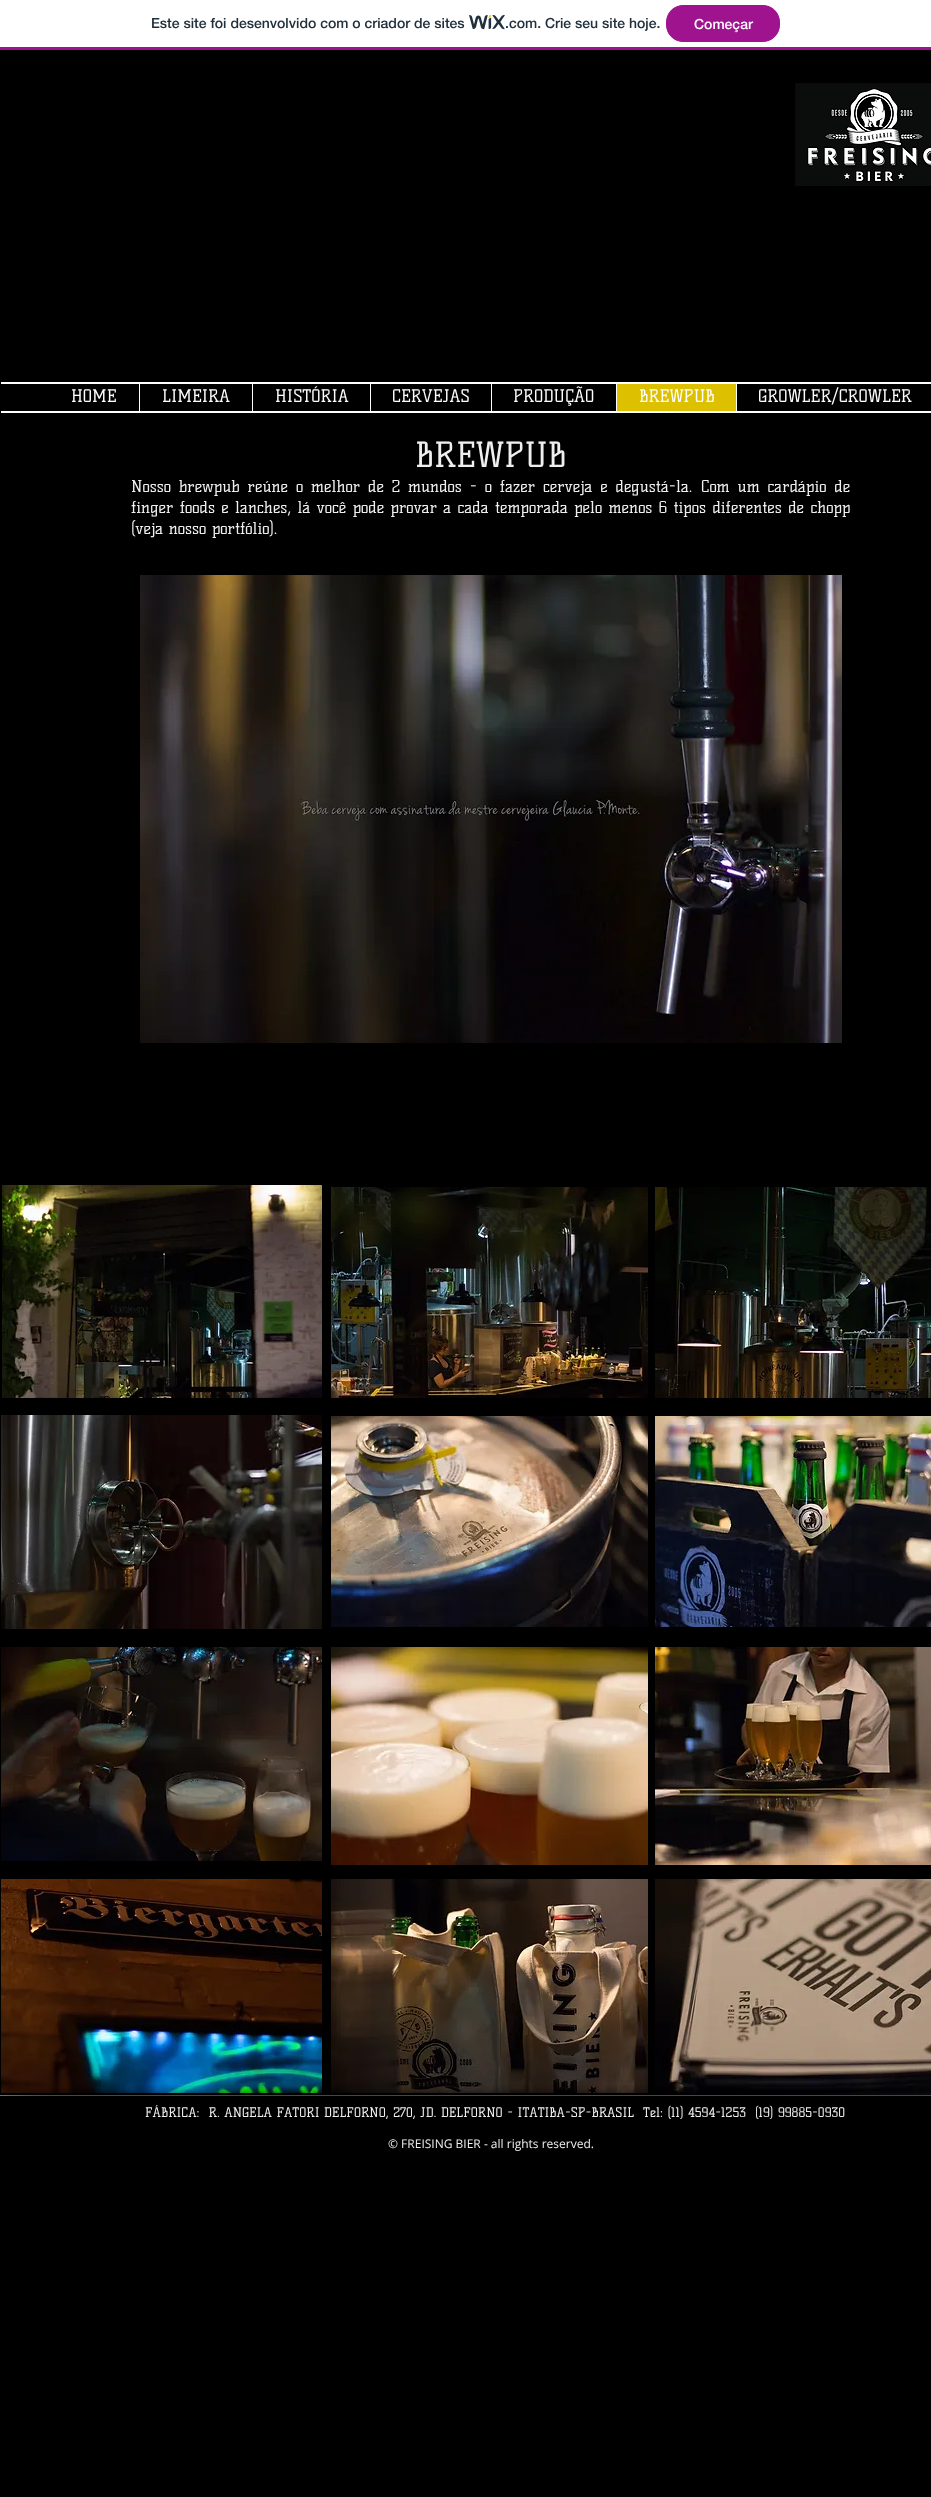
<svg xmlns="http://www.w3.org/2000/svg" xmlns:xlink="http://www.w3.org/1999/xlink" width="931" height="2497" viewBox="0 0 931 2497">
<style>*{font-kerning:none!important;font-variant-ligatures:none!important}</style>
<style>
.cls-1{font:500 14px 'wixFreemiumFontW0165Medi';fill:#20303c}
.cls-2{font:500 14px 'wixFreemiumFontW0165Medi';fill:#ffffff}
.cls-3{font:17px Kelly Slab;fill:#ffffff}
.cls-4{font:34px Kelly Slab;fill:#efefef}
.cls-5{font:16px Kelly Slab;fill:#efefef}
.cls-6{font:13px Kelly Slab;fill:#efefef}
.cls-7{font:12px Open Sans;fill:#efefef}
</style>
<defs>
<clipPath id="clip1"><path d="M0 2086H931V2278H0ZM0 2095H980V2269H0Z" clip-rule="evenodd"/></clipPath>
</defs>
<rect width="100%" height="100%" fill="#000000"/>
<rect fill="#ffffff" x="0" y="0" width="931" height="47"/>
<rect fill="#a0138e" x="0" y="47" width="931" height="3"/>
<image xlink:href="image0.png" x="469" y="15" width="36" height="15"/>
<rect fill="#a0138e" stroke="#a0138e" x="666.5" y="5.5" width="113" height="36" rx="16.5"/>
<image xlink:href="image1.png" x="795" y="83" width="136" height="103"/>
<rect fill="#ffffff" x="139" y="382" width="1" height="29"/>
<rect fill="#ffffff" x="252" y="382" width="1" height="29"/>
<rect fill="#ffffff" x="370" y="382" width="1" height="29"/>
<rect fill="#ffffff" x="491" y="382" width="1" height="29"/>
<rect fill="#ffffff" x="616" y="382" width="1" height="29"/>
<rect fill="#ffffff" x="736" y="382" width="1" height="29"/>
<rect fill="#ffffff" x="1" y="382" width="930" height="2"/>
<rect fill="#ddc000" x="617" y="384" width="119" height="27"/>
<rect fill="#ffffff" x="1" y="411" width="930" height="2"/>
<image xlink:href="image2.png" x="140" y="575" width="702" height="468"/>
<image xlink:href="image3.png" x="2" y="1185" width="320" height="213"/>
<image xlink:href="image4.png" x="331" y="1187" width="317" height="211"/>
<image xlink:href="image5.png" x="655" y="1187" width="276" height="211"/>
<image xlink:href="image6.png" x="1" y="1415" width="321" height="214"/>
<image xlink:href="image7.png" x="331" y="1416" width="317" height="211"/>
<image xlink:href="image8.png" x="655" y="1416" width="276" height="211"/>
<image xlink:href="image9.png" x="1" y="1647" width="321" height="214"/>
<image xlink:href="image10.png" x="331" y="1647" width="317" height="218"/>
<image xlink:href="image11.png" x="655" y="1647" width="276" height="218"/>
<image xlink:href="image12.png" x="1" y="1879" width="321" height="214"/>
<image xlink:href="image13.png" x="331" y="1879" width="317" height="214"/>
<image xlink:href="image14.png" x="655" y="1879" width="276" height="216"/>
<g clip-path="url(#clip1)">
<rect fill="#000000" fill-opacity="0.7" filter="blur(2.5px)" x="0" y="2095" width="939" height="174"/>
</g>
<rect fill="#6e6c6c" x="0" y="2095" width="931" height="1"/>
<image xlink:href="image15.png" x="7" y="2088" width="93" height="8"/>
<image xlink:href="image16.png" x="100" y="2085" width="780" height="11"/>
<image xlink:href="image17.png" x="880" y="2095" width="51" height="1"/>
<text class="cls-1" x="151" y="28">Este site foi desenvolvido com o criador de sites</text>
<text class="cls-1" x="505" y="28">.com. Crie seu site hoje.</text>
<text class="cls-2" x="694" y="29">Começar</text>
<text class="cls-3" x="71" y="402">HOME</text>
<text class="cls-3" x="162" y="402">LIMEIRA</text>
<text class="cls-3" x="275" y="402">HISTÓRIA</text>
<text class="cls-3" x="392" y="402">CERVEJAS</text>
<text class="cls-3" x="513" y="402">PRODUÇÃO</text>
<text class="cls-3" x="639" y="402">BREWPUB</text>
<text class="cls-3" x="758" y="402">GROWLER/CROWLER</text>
<text class="cls-4" x="415" y="467">BREWPUB</text>
<text class="cls-5" x="131" y="492" word-spacing="2.25">Nosso brewpub reúne o melhor de 2 mundos - o fazer cerveja e degustá-la.</text>
<text class="cls-5" x="701" y="492" word-spacing="2.25">Com um cardápio de</text>
<text class="cls-5"><tspan x="131" y="513" word-spacing="0.75">finger foods e lanches, lá você pode provar a cada temporada pelo menos 6 tipos diferentes de chopp</tspan><tspan x="131" y="534">(veja nosso portfólio).</tspan></text>
<text class="cls-6" xml:space="preserve" x="145" y="2117">FÁBRICA:  R. ANGELA FATORI</text>
<text class="cls-6" x="324" y="2117">DELFORNO, 270, JD. DELFORNO - ITATIBA-SP-BRASIL</text>
<text class="cls-6" xml:space="preserve" x="643" y="2117">Tel: (11) 4594-1253  (19) 99885-0930</text>
<text class="cls-7" x="388" y="2148">© FREISING BIER - all rights reserved.</text>
</svg>
